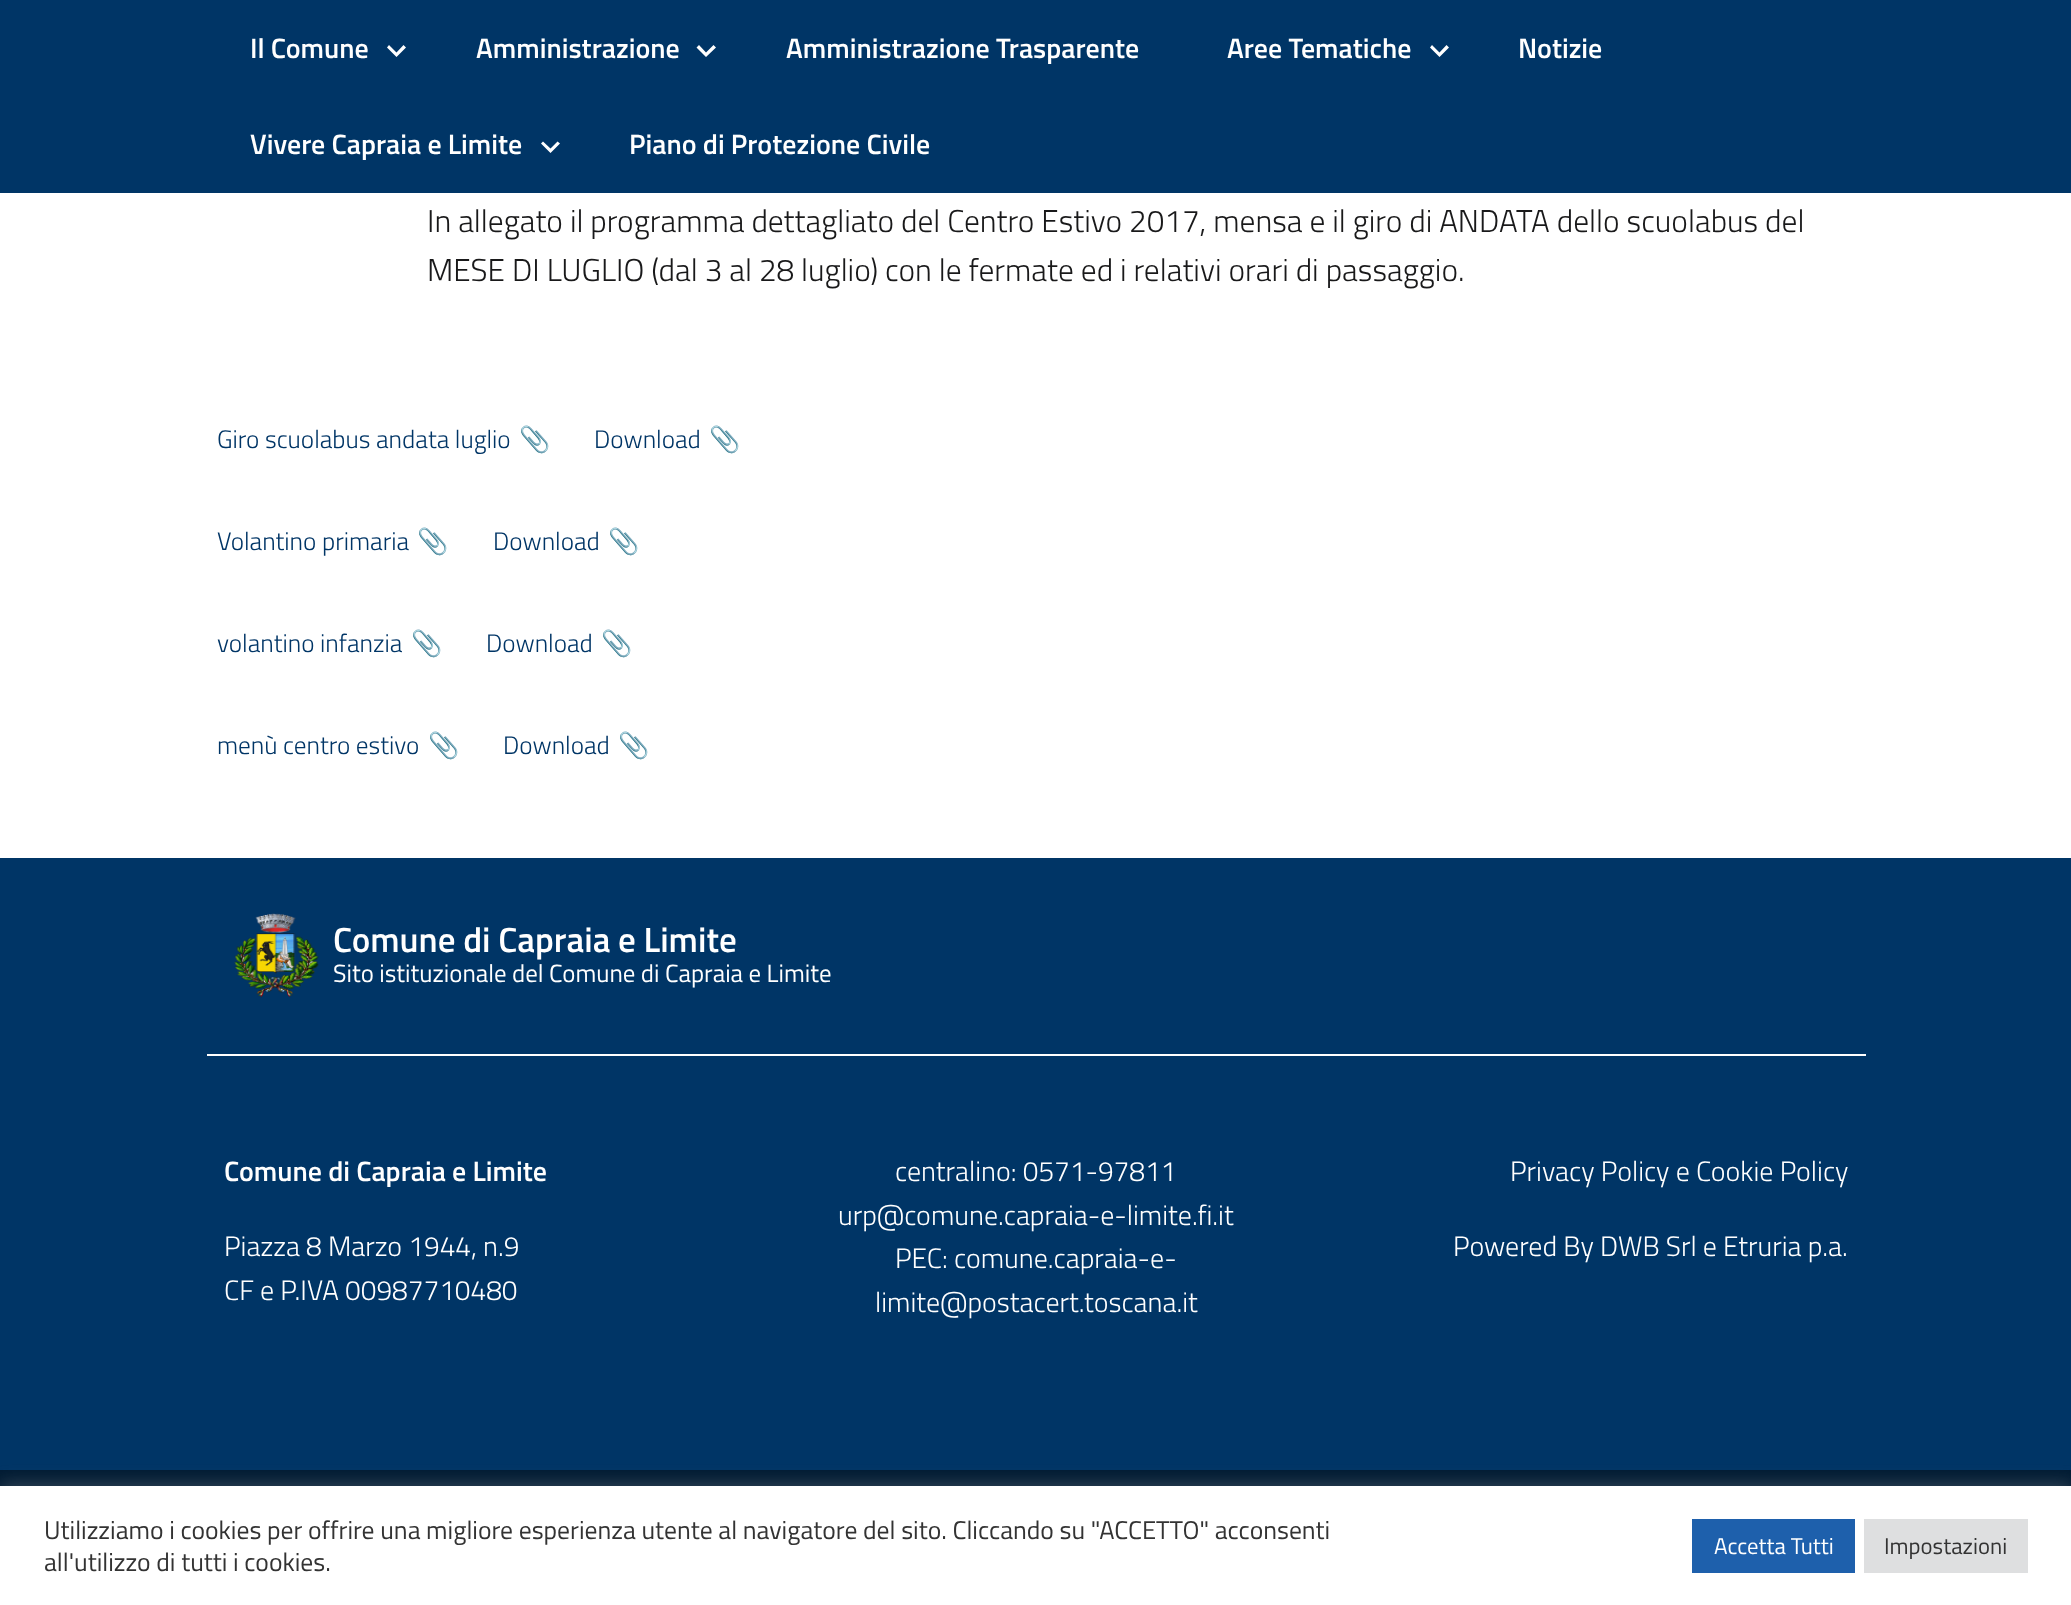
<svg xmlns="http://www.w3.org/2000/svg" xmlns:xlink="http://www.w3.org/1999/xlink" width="2071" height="1605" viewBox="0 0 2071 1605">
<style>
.cls-1{font:600 28px Titillium Web;fill:#ffffff}
.cls-2{font:300 31.5px Titillium Web;fill:#19191a}
.cls-3{font:300 25.25px Titillium Web;fill:#003566}
.cls-4{font:25.25px Noto Color Emoji;fill:#003566}
.cls-5{font:600 35px Titillium Web;fill:#ffffff}
.cls-6{font:24.9px Titillium Web;fill:#ffffff}
.cls-7{font:300 28px Titillium Web;fill:#ffffff}
.cls-8{font:25.67px Titillium Web;fill:#333333}
.cls-9{font:22.75px Titillium Web;fill:#ffffff}
.cls-10{font:22.75px Titillium Web;fill:#333333}
</style>
<rect width="100%" height="100%" fill="#ffffff"/>
<rect fill="#003566" x="0" y="0" width="2071" height="193"/>
<path fill="#ffffff" d="M389 45L387 47.5L396.5 57L406 47.5L403.5 45L396.5 52.5Z"/>
<path fill="#ffffff" d="M699 45L696.5 47.5L706 57L716 47.5L713.5 45L706 52.5Z"/>
<path fill="#ffffff" d="M1432 45L1430 47.5L1439.5 57L1449 47.5L1446.5 45L1439.5 52.5Z"/>
<path fill="#ffffff" d="M543 141.5L541 143.5L550.5 153L560 143.5L557.5 141.5L550.5 148.5Z"/>
<rect fill="#003566" x="0" y="858" width="2071" height="612"/>
<image xlink:href="image0.png" x="234" y="913" width="85" height="85"/>
<rect fill="#ffffff" x="207" y="1054" width="1659" height="2"/>
<rect fill="#001b33" x="0" y="1470" width="2071" height="16"/>
<rect fill="#acabab" fill-opacity="0.3" filter="blur(9px)" x="0" y="1484" width="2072" height="121"/>
<rect fill="#ffffff" x="0" y="1486" width="2071" height="119"/>
<rect fill="#1e60ac" x="1692" y="1519" width="163" height="54"/>
<rect fill="#dedfe0" x="1864" y="1519" width="164" height="54"/>
<text class="cls-1" x="250" y="58">Il Comune</text>
<text class="cls-1" x="476" y="58">Amministrazione</text>
<text class="cls-1" x="786" y="58">Amministrazione Trasparente</text>
<text class="cls-1" x="1227" y="58">Aree Tematiche</text>
<text class="cls-1" x="1518" y="58">Notizie</text>
<text class="cls-1" x="250" y="154">Vivere Capraia e Limite</text>
<text class="cls-1" x="629" y="154">Piano di Protezione Civile</text>
<text class="cls-2"><tspan x="427" y="232">In allegato il programma dettagliato del Centro Estivo 2017, mensa e il giro di ANDATA dello scuolabus del</tspan><tspan x="427" y="281">MESE DI LUGLIO (dal 3 al 28 luglio) con le fermate ed i relativi orari di passaggio.</tspan></text>
<text class="cls-3" x="217" y="448">Giro scuolabus andata luglio</text>
<text class="cls-4" x="519" y="448">📎</text>
<text class="cls-3" x="594" y="448">Download</text>
<text class="cls-4" x="709" y="448">📎</text>
<text class="cls-3" x="217" y="550">Volantino primaria</text>
<text class="cls-4" x="417" y="550">📎</text>
<text class="cls-3" x="493" y="550">Download</text>
<text class="cls-4" x="608" y="550">📎</text>
<text class="cls-3" x="217" y="652">volantino infanzia</text>
<text class="cls-4" x="411" y="652">📎</text>
<text class="cls-3" x="486" y="652">Download</text>
<text class="cls-4" x="601" y="652">📎</text>
<text class="cls-3" x="217" y="754">menù centro estivo</text>
<text class="cls-4" x="428" y="754">📎</text>
<text class="cls-3" x="503" y="754">Download</text>
<text class="cls-4" x="618" y="754">📎</text>
<text class="cls-5" x="333" y="952">Comune di Capraia e Limite</text>
<text class="cls-6" x="333" y="982">Sito istituzionale del Comune di Capraia e Limite</text>
<text class="cls-1" x="224" y="1181">Comune di Capraia e Limite</text>
<text class="cls-7"><tspan x="224" y="1256">Piazza 8 Marzo 1944, n.9</tspan><tspan x="224" y="1300">CF e P.IVA 00987710480</tspan></text>
<text class="cls-7" x="895" y="1181">centralino: 0571-97811</text>
<text class="cls-7" x="838" y="1225">urp@comune.capraia-e-limite.fi.it</text>
<text class="cls-7" x="895" y="1268">PEC: comune.capraia-e-</text>
<text class="cls-7" x="875" y="1312">limite@postacert.toscana.it</text>
<text class="cls-7" x="1510" y="1181">Privacy Policy e Cookie Policy</text>
<text class="cls-7" x="1453" y="1256">Powered By DWB Srl e Etruria p.a.</text>
<text class="cls-8"><tspan x="44" y="1539">Utilizziamo i cookies per offrire una migliore esperienza utente al navigatore del sito. Cliccando su "ACCETTO" acconsenti</tspan><tspan x="44" y="1571">all'utilizzo di tutti i cookies.</tspan></text>
<text class="cls-9" x="1714" y="1554">Accetta Tutti</text>
<text class="cls-10" x="1884" y="1554">Impostazioni</text>
</svg>
